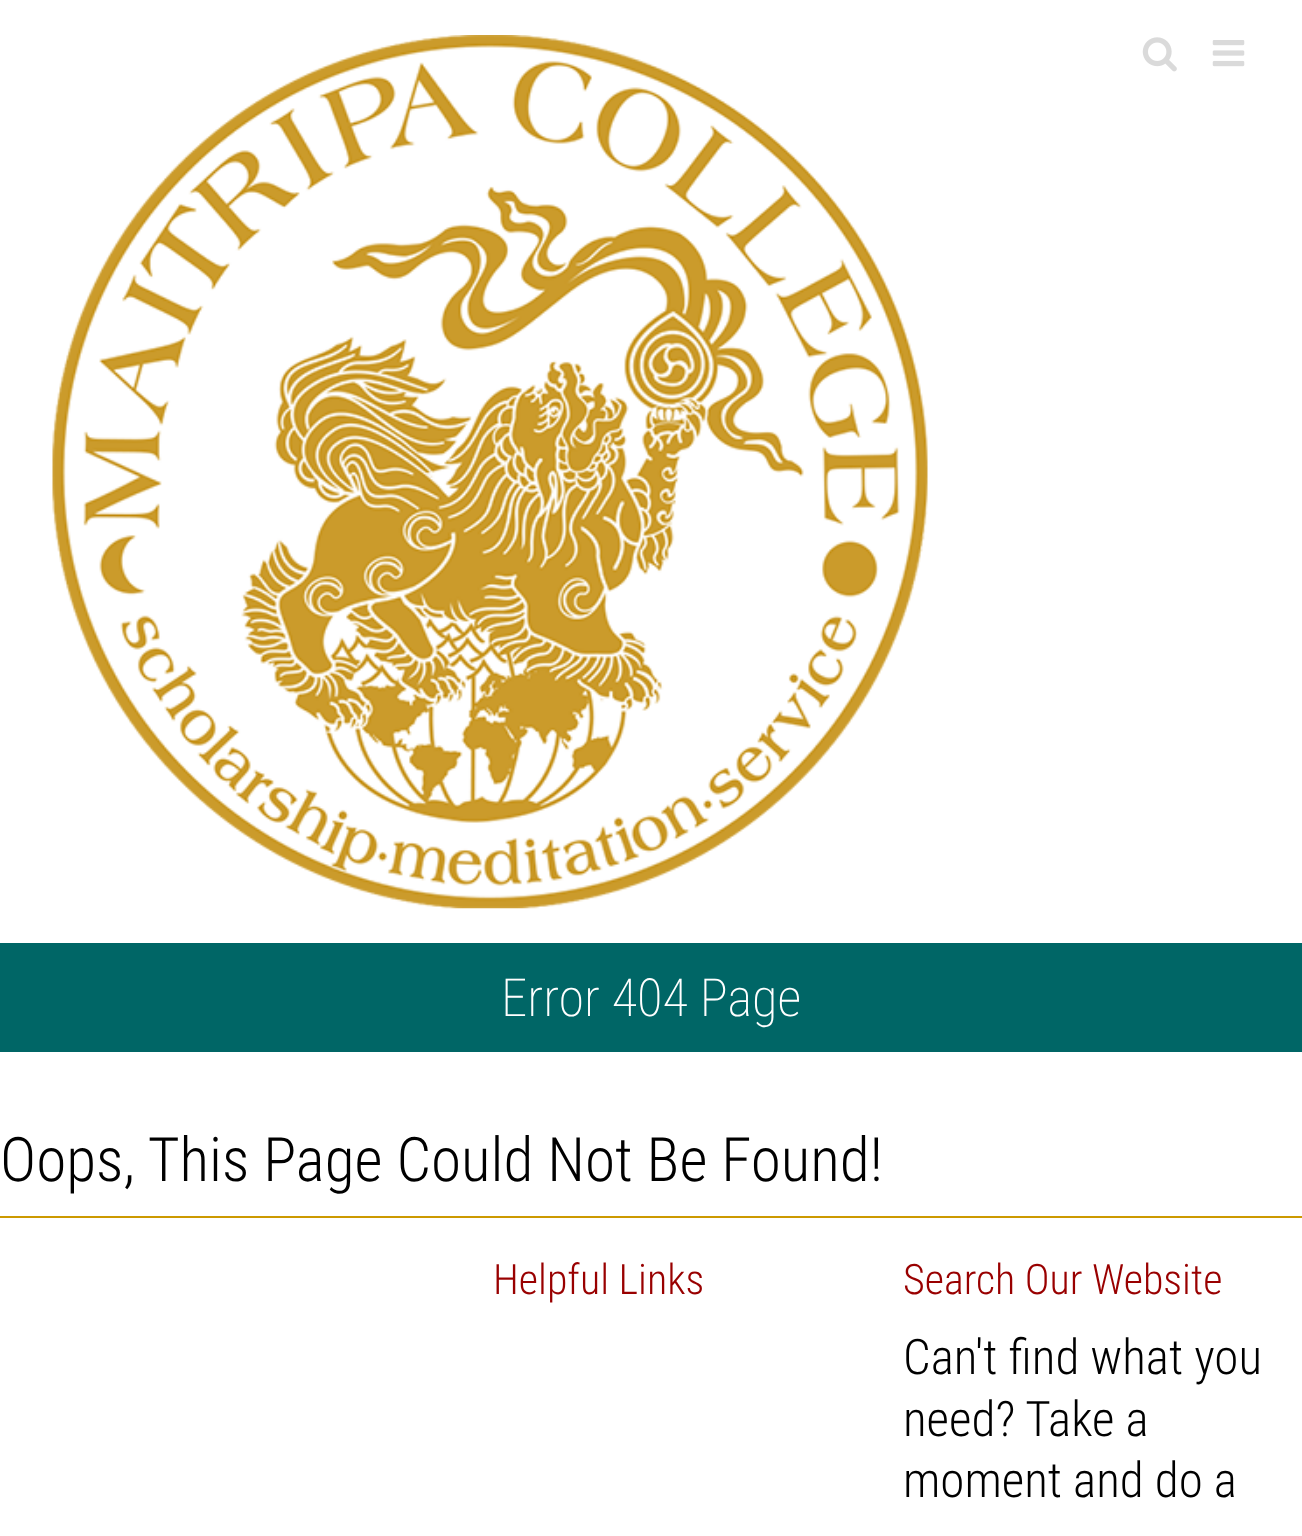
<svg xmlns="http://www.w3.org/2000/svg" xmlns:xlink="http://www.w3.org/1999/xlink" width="1302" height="1536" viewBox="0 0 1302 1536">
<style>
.cls-1{font:200 52.5px Roboto Condensed;fill:#ffffff}
.cls-2{font:300 61.25px Roboto Condensed;fill:#000000}
.cls-3{font:300 42px Roboto Condensed;fill:#990000}
.cls-4{font:300 49px Roboto Condensed;fill:#000000}
</style>
<rect width="100%" height="100%" fill="#ffffff"/>
<image xlink:href="image0.png" x="52" y="35" width="876" height="874"/>
<image xlink:href="image1.png" x="1142" y="37" width="35" height="35"/>
<image xlink:href="image2.png" x="1212" y="40" width="33" height="27"/>
<rect fill="#006666" x="0" y="943" width="1302" height="109"/>
<rect fill="#cc9900" x="0" y="1216" width="1302" height="2"/>
<text class="cls-1" x="501" y="1016">Error 404 Page</text>
<text class="cls-2" x="0" y="1181">Oops, This Page Could Not Be Found!</text>
<text class="cls-3" x="493" y="1294">Helpful Links</text>
<text class="cls-3" x="903" y="1294">Search Our Website</text>
<text class="cls-4"><tspan x="903" y="1374">Can't find what you</tspan><tspan x="903" y="1436">need? Take a</tspan><tspan x="903" y="1497">moment and do a</tspan></text>
</svg>
